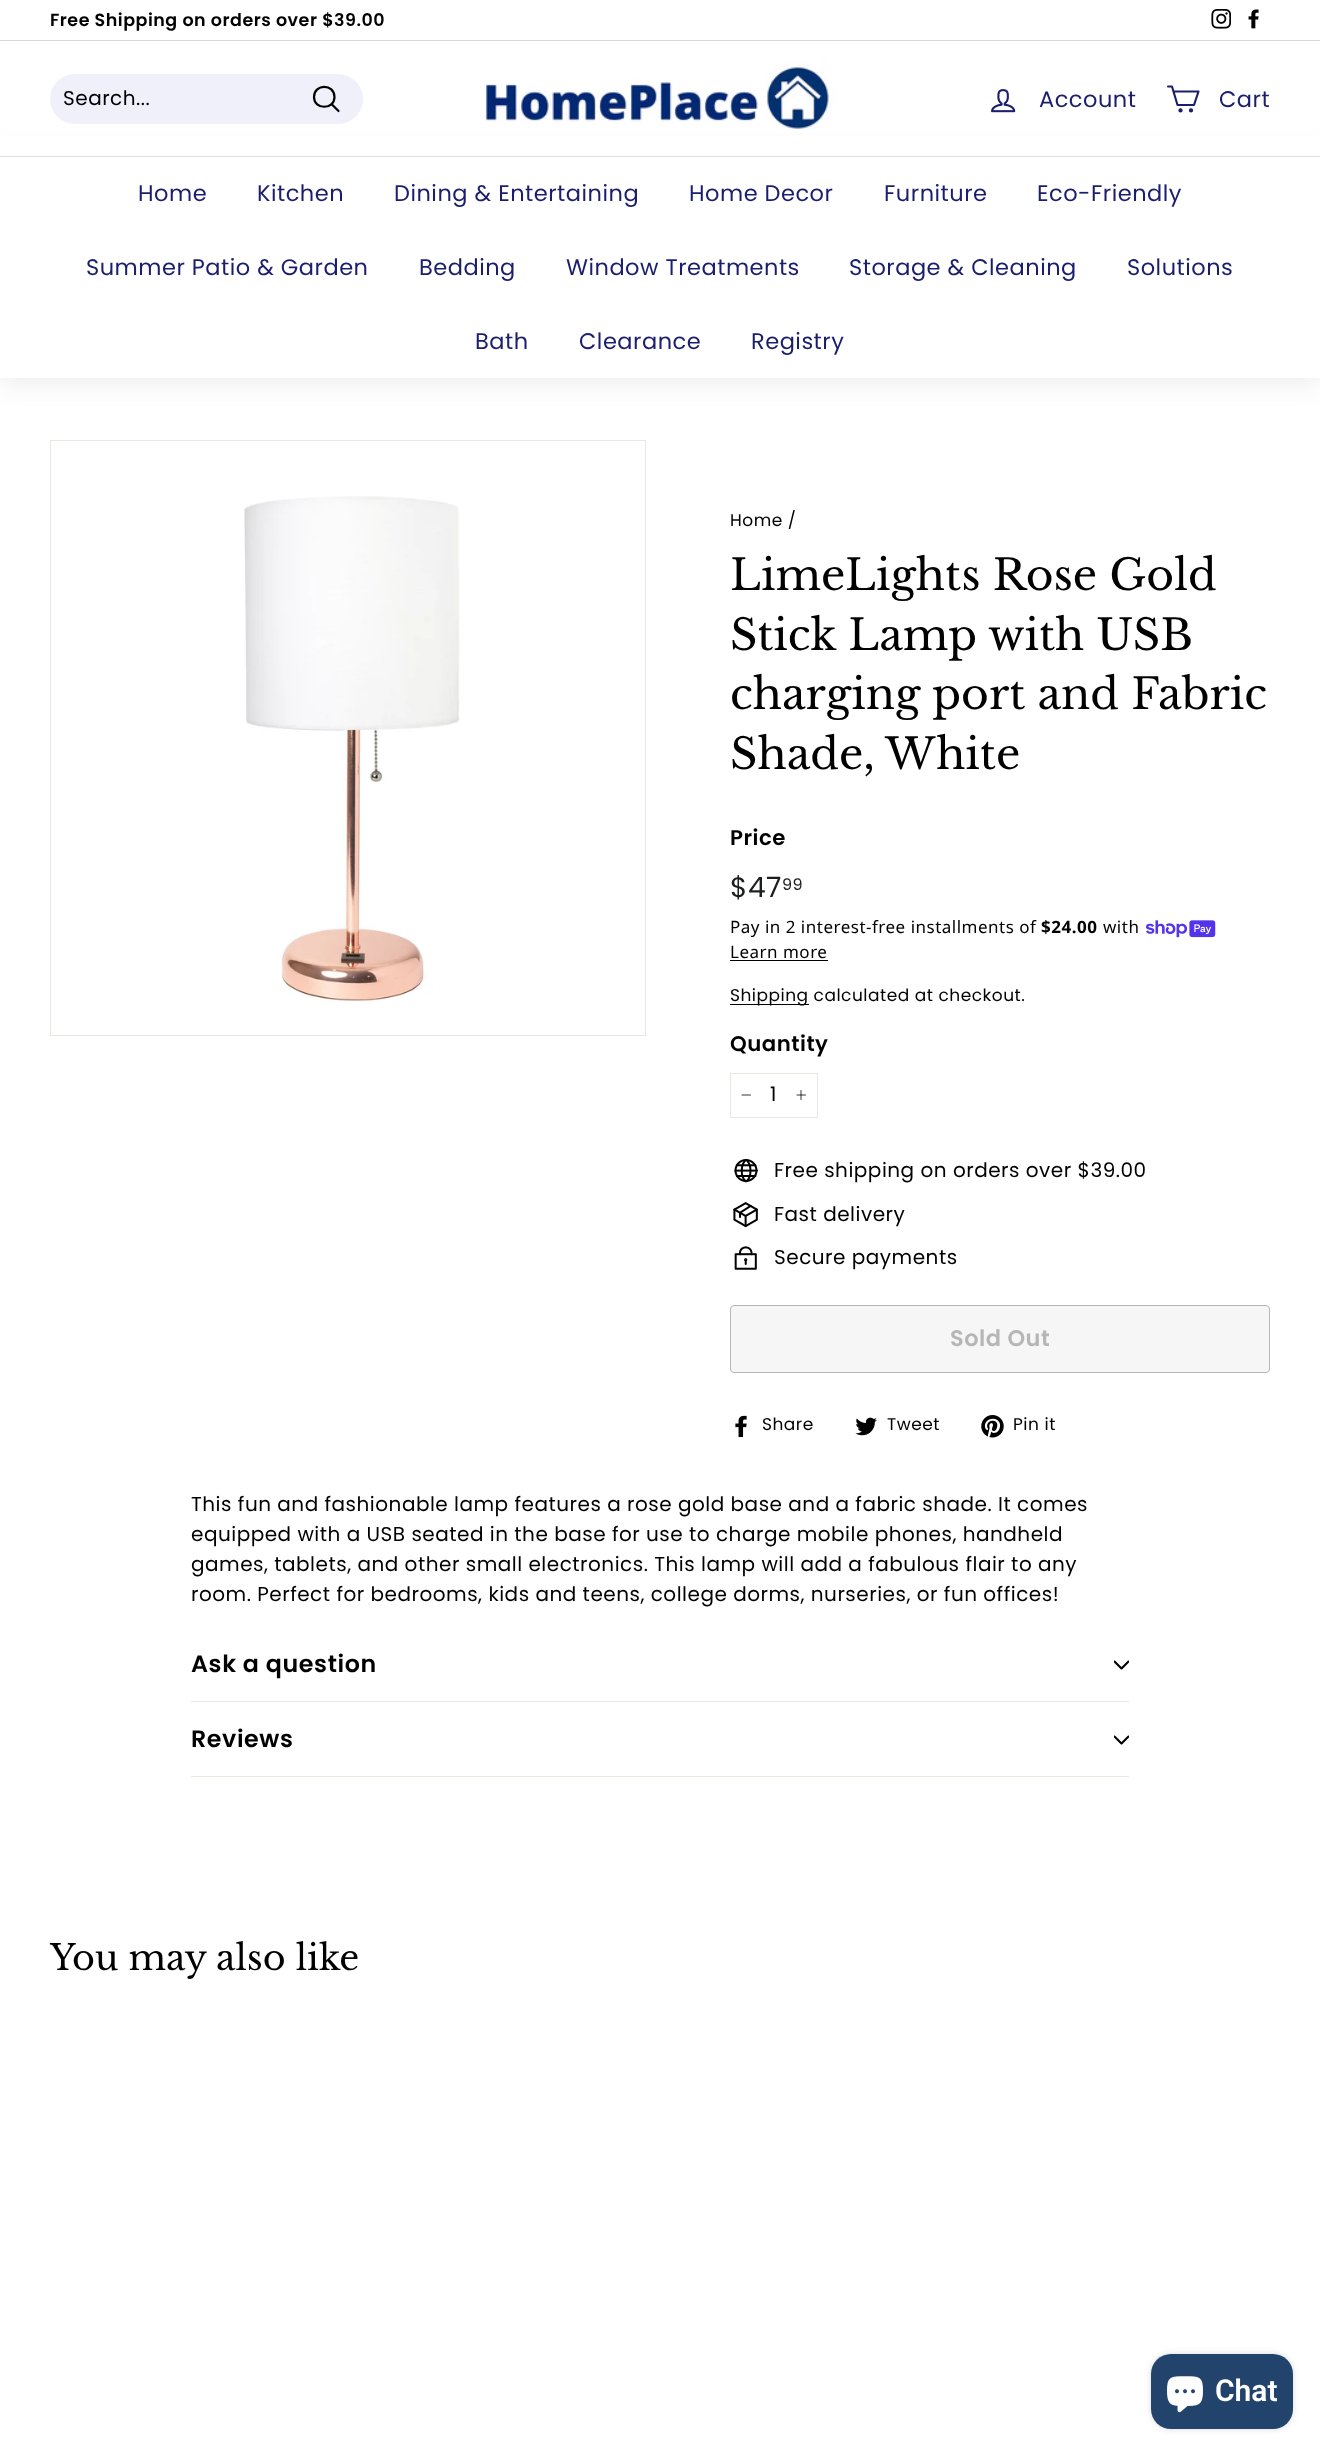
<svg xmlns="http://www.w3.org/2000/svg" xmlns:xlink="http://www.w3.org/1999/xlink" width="1320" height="2454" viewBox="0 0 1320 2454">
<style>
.cls-1{font:600 17.5px Poppins;letter-spacing:0.5px;fill:#000000}
.cls-2{font:20px Poppins;letter-spacing:0.5px;fill:#000000}
.cls-3{font:22.5px Poppins;letter-spacing:0.5px;fill:#1b1d6d}
.cls-4{font:17px Poppins;letter-spacing:0.5px;fill:#000000}
.cls-5{font:42.5px Libre Baskerville;fill:#000000}
.cls-6{font:600 21.25px Poppins;letter-spacing:0.5px;fill:#000000}
.cls-7{font:28px Poppins;letter-spacing:0.5px;fill:#1c1d1d}
.cls-8{font:16px Poppins;letter-spacing:0.5px;fill:#1c1d1d}
.cls-9{font:17px Noto Sans;letter-spacing:0.5px;fill:#000000}
.cls-10{font:bold 17px Noto Sans;letter-spacing:0.5px;fill:#000000}
.cls-11{font:600 22.5px Poppins;letter-spacing:0.5px;fill:#b6b6b6}
.cls-12{font:600 23.75px Poppins;letter-spacing:0.6px;fill:#000000}
.cls-13{font:35px Libre Baskerville;fill:#000000}
.cls-14{font:600 30px Roboto;fill:#ffffff}
</style>
<defs>
<clipPath id="clip1"><rect x="1114" y="1658" width="15" height="15"/></clipPath>
<clipPath id="clip2"><rect x="1114" y="1733" width="15" height="15"/></clipPath>
</defs>
<rect width="100%" height="100%" fill="#ffffff"/>
<image xlink:href="image0.png" x="1211" y="9" width="20" height="20"/>
<image xlink:href="image1.png" x="1248" y="9" width="11" height="20"/>
<rect fill="#d9d9d9" x="0" y="40" width="1320" height="1"/>
<rect fill="#000000" fill-opacity="0.1" filter="blur(15.5px)" x="0" y="156" width="1320" height="222"/>
<rect fill="#ffffff" x="0" y="136" width="1320" height="20"/>
<rect fill="#eff0fa" x="50" y="74" width="313" height="50" rx="25"/>
<path fill="none" stroke="#000000" stroke-width="2.2" stroke-linecap="round" stroke-linejoin="round" d="M334.5 97C334.5 110 314 110 314 97C314 83.5 334.5 83.5 334.5 97ZM338.5 111L331.5 104"/>
<image xlink:href="image2.png" x="485" y="60" width="351" height="70"/>
<image xlink:href="image3.png" x="991" y="89" width="25" height="24"/>
<path fill="none" stroke="#1b1d6d" stroke-width="2.1" stroke-linecap="round" stroke-linejoin="round" d="M1173.5 91.5H1198.5L1194 105H1177.5L1172 86.5H1168"/>
<circle fill="none" stroke="#1b1d6d" stroke-width="2.1" cx="1180.5" cy="110.4" r="1.1"/>
<circle fill="none" stroke="#1b1d6d" stroke-width="2.1" cx="1191" cy="110.4" r="1.1"/>
<rect fill="#ffffff" x="0" y="157" width="1320" height="221"/>
<rect fill="#dddde9" x="0" y="156" width="1320" height="1"/>
<rect fill="none" stroke="#e8e8e1" x="50.5" y="440.5" width="595" height="595"/>
<image xlink:href="image4.png" x="244" y="496" width="216" height="506"/>
<image xlink:href="image5.png" x="1146" y="920" width="70" height="18"/>
<rect fill="#000000" x="730" y="960" width="98" height="1"/>
<rect fill="#000000" x="730" y="1004" width="79" height="1"/>
<rect fill="none" stroke="#e8e8e1" x="730.5" y="1073.5" width="87" height="44"/>
<path fill="none" stroke="#000000" stroke-width="0.8" stroke-linecap="round" stroke-linejoin="round" d="M750.5 1095H742"/>
<path fill="none" stroke="#000000" stroke-width="0.8" stroke-linecap="round" stroke-linejoin="round" d="M801 1090.5V1099.5M805.5 1095H797"/>
<image xlink:href="image6.png" x="734" y="1158" width="24" height="25"/>
<image xlink:href="image7.png" x="733" y="1202" width="25" height="26"/>
<image xlink:href="image8.png" x="734" y="1246" width="23" height="24"/>
<rect fill="#f6f6f6" stroke="#b6b6b6" x="730.5" y="1305.5" width="539" height="67" rx="3.5"/>
<image xlink:href="image9.png" x="735" y="1415" width="12" height="23"/>
<image xlink:href="image10.png" x="855" y="1417" width="22" height="19"/>
<image xlink:href="image11.png" x="981" y="1415" width="23" height="23"/>
<rect fill="#e8e8e1" x="191" y="1701" width="938" height="1"/>
<g clip-path="url(#clip1)">
<path fill="none" stroke="#000000" stroke-width="2.1" stroke-linecap="round" stroke-linejoin="round" d="M1114.5 1661.5L1121.5 1668.5L1128.5 1661.5"/>
</g>
<rect fill="#e8e8e1" x="191" y="1776" width="938" height="1"/>
<g clip-path="url(#clip2)">
<path fill="none" stroke="#000000" stroke-width="2.1" stroke-linecap="round" stroke-linejoin="round" d="M1114.5 1736.5L1121.5 1743.5L1128.5 1736.5"/>
</g>
<rect fill="#000000" fill-opacity="0.15" filter="blur(3px)" x="1151" y="2354" width="142" height="75" rx="20"/>
<rect fill="#22446c" x="1151" y="2354" width="142" height="75" rx="20"/>
<image xlink:href="image12.png" x="1167" y="2376" width="36" height="37"/>
<text class="cls-1" x="50" y="26">Free Shipping on orders over $39.00</text>
<text class="cls-2" x="63" y="105">Search...</text>
<text class="cls-3" x="1039" y="107">Account</text>
<text class="cls-3" x="1219" y="107">Cart</text>
<text class="cls-3" x="138" y="201">Home</text>
<text class="cls-3" x="257" y="201">Kitchen</text>
<text class="cls-3" x="394" y="201">Dining &amp; Entertaining</text>
<text class="cls-3" x="689" y="201">Home Decor</text>
<text class="cls-3" x="884" y="201">Furniture</text>
<text class="cls-3" x="1037" y="201">Eco-Friendly</text>
<text class="cls-3" x="86" y="275">Summer Patio &amp; Garden</text>
<text class="cls-3" x="419" y="275">Bedding</text>
<text class="cls-3" x="566" y="275">Window Treatments</text>
<text class="cls-3" x="849" y="275">Storage &amp; Cleaning</text>
<text class="cls-3" x="1127" y="275">Solutions</text>
<text class="cls-3" x="475" y="349">Bath</text>
<text class="cls-3" x="579" y="349">Clearance</text>
<text class="cls-3" x="751" y="349">Registry</text>
<text class="cls-4" x="730" y="526">Home /</text>
<text class="cls-5"><tspan x="730" y="590">LimeLights Rose Gold</tspan><tspan x="730" y="650">Stick Lamp with USB</tspan><tspan x="730" y="709">charging port and Fabric</tspan><tspan x="730" y="769">Shade, White</tspan></text>
<text class="cls-6" x="730" y="845">Price</text>
<text class="cls-7" x="730" y="897">$47</text>
<text class="cls-8" x="782" y="890">99</text>
<text class="cls-9" x="730" y="933">Pay in 2 interest-free installments of</text>
<text class="cls-10" x="1041" y="933">$24.00</text>
<text class="cls-9" x="1103" y="933">with</text>
<text class="cls-9" x="730" y="958">Learn more</text>
<text class="cls-4" x="730" y="1001">Shipping calculated at checkout.</text>
<text class="cls-6" x="730" y="1051">Quantity</text>
<text class="cls-2" x="770" y="1101">1</text>
<text class="cls-2" x="774" y="1177">Free shipping on orders over $39.00</text>
<text class="cls-2" x="774" y="1221">Fast delivery</text>
<text class="cls-2" x="774" y="1264">Secure payments</text>
<text class="cls-11" x="950" y="1346">Sold Out</text>
<text class="cls-4" x="762" y="1430">Share</text>
<text class="cls-4" x="887" y="1430">Tweet</text>
<text class="cls-4" x="1013" y="1430">Pin it</text>
<text class="cls-2"><tspan x="191" y="1511">This fun and fashionable lamp features a rose gold base and a fabric shade. It comes</tspan><tspan x="191" y="1541">equipped with a USB seated in the base for use to charge mobile phones, handheld</tspan><tspan x="191" y="1571">games, tablets, and other small electronics. This lamp will add a fabulous flair to any</tspan><tspan x="191" y="1601">room. Perfect for bedrooms, kids and teens, college dorms, nurseries, or fun offices!</tspan></text>
<text class="cls-12" x="191" y="1672">Ask a question</text>
<text class="cls-12" x="191" y="1747">Reviews</text>
<text class="cls-13" x="50" y="1970">You may also like</text>
<text class="cls-14" x="1215" y="2401">Chat</text>
</svg>
